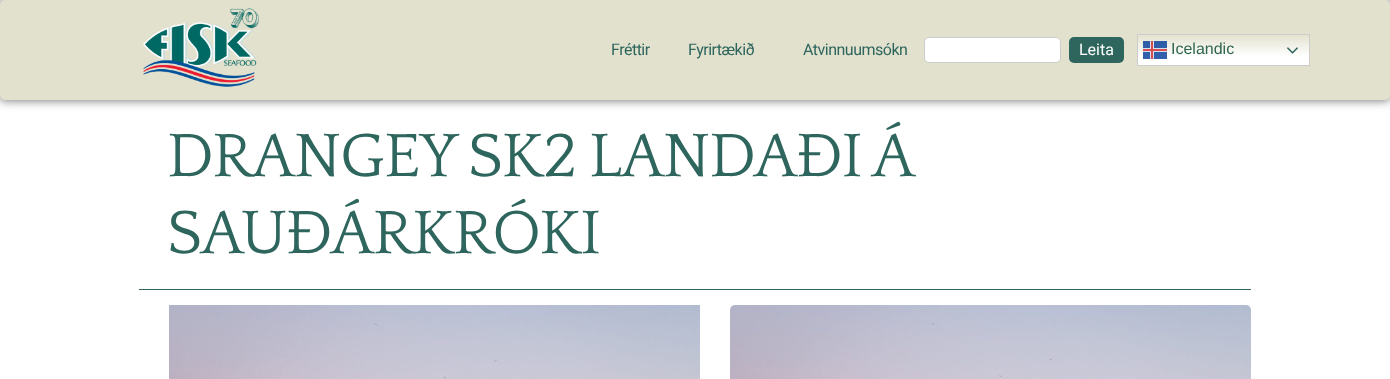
<svg xmlns="http://www.w3.org/2000/svg" xmlns:xlink="http://www.w3.org/1999/xlink" width="1390" height="379" viewBox="0 0 1390 379">
<style>
.cls-1{font:16px Roboto;letter-spacing:-0.5px;fill:#2e665e}
.cls-2{font:16px Roboto;fill:#ffffff}
.cls-3{font:16px Liberation Sans;fill:#2e6652}
.cls-4{font:64px Quattrocento;letter-spacing:-1.25px;fill:#2e665e}
</style>
<defs>
<linearGradient id="g1" gradientUnits="userSpaceOnUse" x1="1224" y1="34" x2="1224" y2="66"><stop offset="0" stop-color="#e2e1ce"/><stop offset="0.7" stop-color="#ffffff"/></linearGradient>
</defs>
<rect width="100%" height="100%" fill="#ffffff"/>
<rect fill="#000000" fill-opacity="0.5" filter="blur(5px)" x="-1" y="-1" width="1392" height="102" rx="6"/>
<rect fill="#e2e1ce" x="0" y="0" width="1390" height="100" rx="5"/>
<image xlink:href="image0.png" x="143" y="8" width="116" height="79"/>
<rect fill="#ffffff" stroke="#cdcdcd" x="924.5" y="37.5" width="136" height="25" rx="4.5"/>
<rect fill="#2e665e" x="1069" y="37" width="55" height="26" rx="5"/>
<rect fill="url(#g1)" x="1138" y="35" width="171" height="30"/>
<rect fill="none" stroke="#cccccc" x="1137.5" y="34.5" width="172" height="31"/>
<image xlink:href="image1.png" x="1143" y="41" width="24" height="18"/>
<image xlink:href="image2.png" x="1287" y="47" width="11" height="7"/>
<rect fill="#2e665e" x="139" y="289" width="1112" height="1"/>
<image xlink:href="image3.png" x="169" y="305" width="531" height="74"/>
<image xlink:href="image4.png" x="730" y="305" width="521" height="74"/>
<text class="cls-1" x="611" y="55">Fréttir</text>
<text class="cls-1" x="688" y="55">Fyrirtækið</text>
<text class="cls-1" x="803" y="55">Atvinnuumsókn</text>
<text class="cls-2" x="1079" y="55">Leita</text>
<text class="cls-3" x="1171" y="54">Icelandic</text>
<text class="cls-4"><tspan x="167" y="176" word-spacing="-1">DRANGEY SK2 LANDAÐI Á</tspan><tspan x="167" y="253">SAUÐÁRKRÓKI</tspan></text>
</svg>
